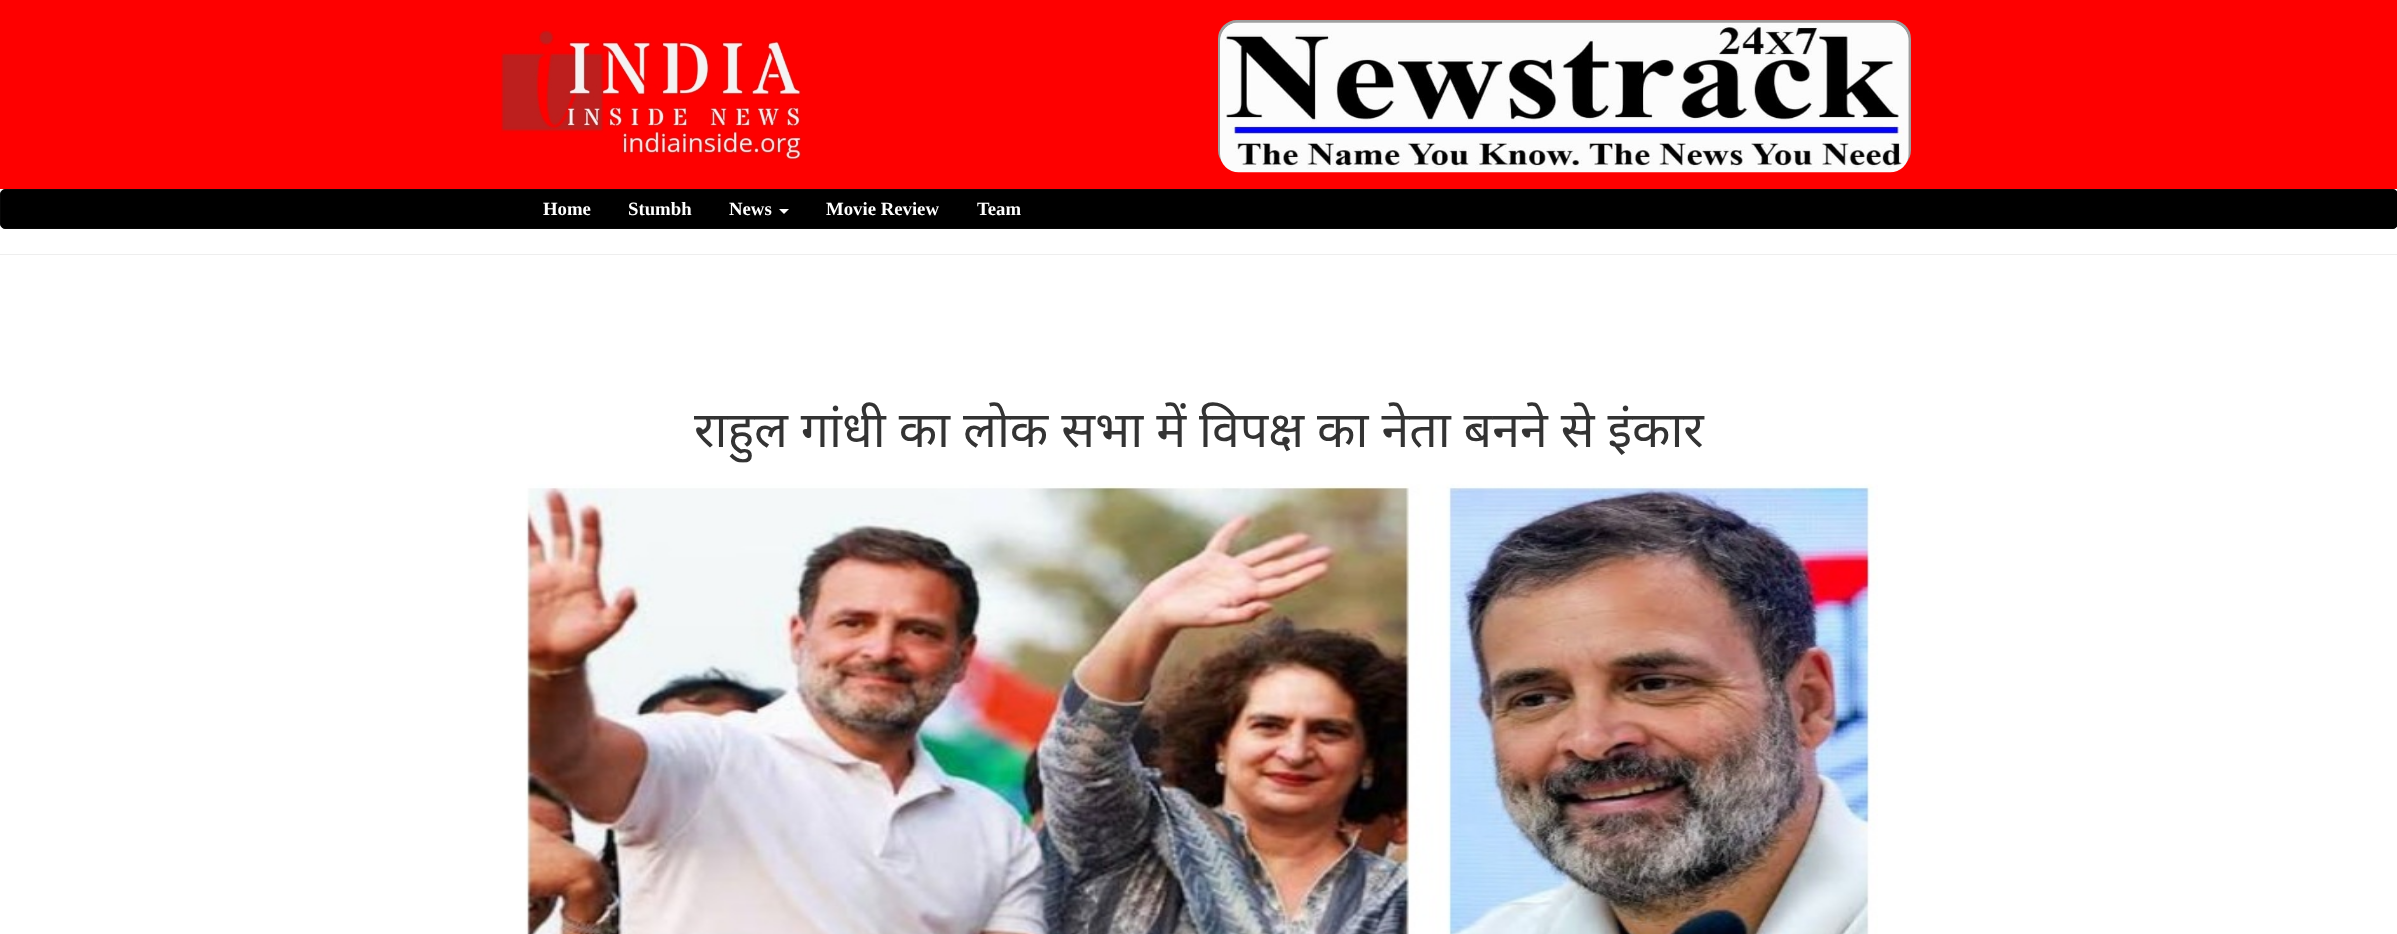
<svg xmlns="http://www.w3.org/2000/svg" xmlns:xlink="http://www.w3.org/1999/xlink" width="2397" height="934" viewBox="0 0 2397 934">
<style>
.cls-1{font:bold 18.75px Liberation Serif;fill:#ffffff}
.cls-2{font:50px Noto Sans;fill:#333333}
</style>
<rect width="100%" height="100%" fill="#ffffff"/>
<rect fill="#fe0000" x="0" y="0" width="2397" height="189"/>
<image xlink:href="image0.png" x="501" y="30" width="301" height="130"/>
<rect fill="#ffffff" stroke="#9f9f9f" stroke-width="3" x="1219.5" y="21.5" width="690" height="146" rx="17.5"/>
<image xlink:href="image1.png" x="1220" y="22" width="689" height="151"/>
<rect fill="#000000" stroke="#080808" x="0.5" y="189.5" width="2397" height="39" rx="4.5"/>
<path fill="#ffffff" d="M779 209H789L784 214Z"/>
<rect fill="#eeeeee" x="0" y="254" width="2397" height="1"/>
<text class="cls-1" x="543" y="215">Home</text>
<text class="cls-1" x="628" y="215">Stumbh</text>
<text class="cls-1" x="729" y="215">News</text>
<text class="cls-1" x="826" y="215">Movie Review</text>
<text class="cls-1" x="977" y="215">Team</text>
<text class="cls-2" x="694" y="447">राहुल गांधी का लोक सभा में विपक्ष का नेता बनने से इंकार</text>
<image xlink:href="image2.png" x="525" y="462" width="1353" height="472"/>
</svg>
